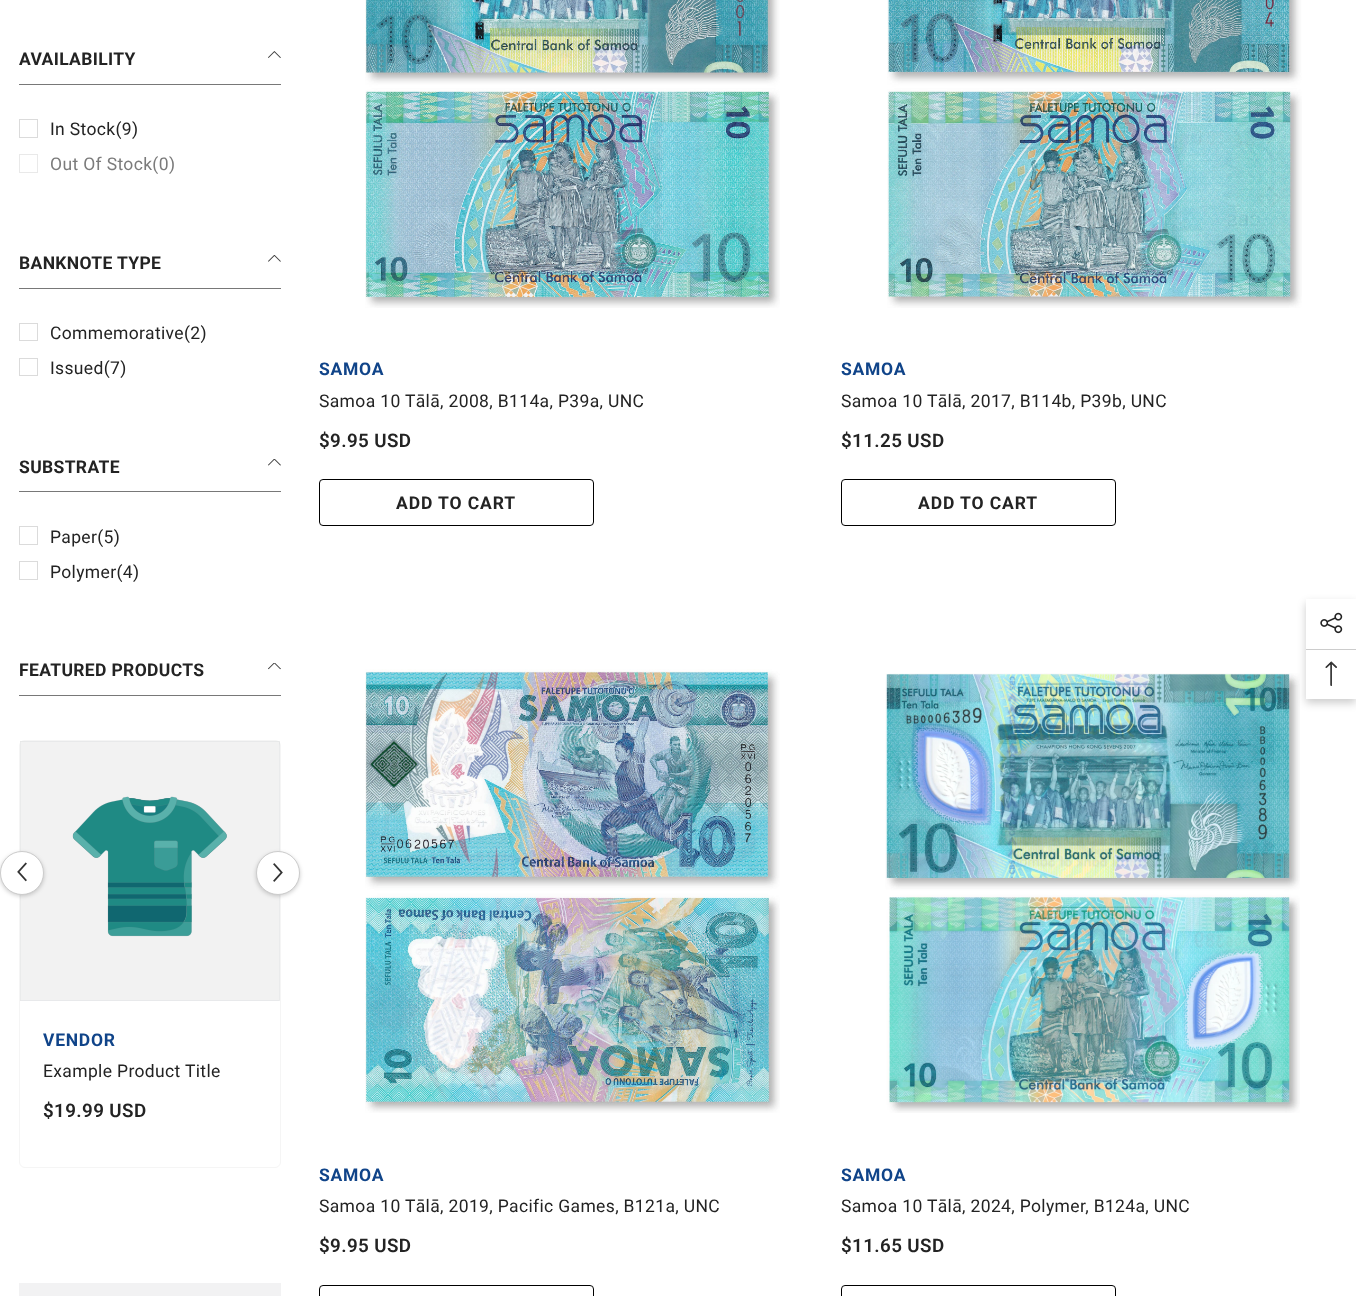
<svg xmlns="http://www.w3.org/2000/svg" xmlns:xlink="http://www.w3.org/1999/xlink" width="1356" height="1296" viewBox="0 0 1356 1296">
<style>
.cls-1{font:bold 17.5px Roboto;letter-spacing:0.35px;fill:#232323}
.cls-2{font:17.5px Roboto;letter-spacing:0.35px;fill:#232323}
.cls-3{font:17.5px Roboto;letter-spacing:0.35px;fill:#7b7b7b}
.cls-4{font:bold 17.5px Roboto;letter-spacing:0.75px;fill:#104489}
.cls-5{font:600 18.75px Roboto;letter-spacing:0.4px;fill:#232323}
.cls-6{font:bold 17.5px Roboto;letter-spacing:0.9px;fill:#232323}
</style>
<rect width="100%" height="100%" fill="#ffffff"/>
<rect fill="#787878" x="19" y="84" width="262" height="1"/>
<image xlink:href="image0.png" x="268" y="51" width="13" height="7"/>
<rect fill="none" stroke="#dbdbdb" x="19.5" y="119.5" width="18" height="18"/>
<rect fill="none" stroke="#e9e9e9" x="19.5" y="154.5" width="18" height="18"/>
<rect fill="#787878" x="19" y="288" width="262" height="1"/>
<image xlink:href="image1.png" x="268" y="255" width="13" height="7"/>
<rect fill="none" stroke="#dbdbdb" x="19.5" y="323.5" width="18" height="17"/>
<rect fill="none" stroke="#dbdbdb" x="19.5" y="358.5" width="18" height="17"/>
<rect fill="#787878" x="19" y="491" width="262" height="1"/>
<image xlink:href="image2.png" x="268" y="459" width="13" height="7"/>
<rect fill="none" stroke="#dbdbdb" x="19.5" y="526.5" width="18" height="18"/>
<rect fill="none" stroke="#dbdbdb" x="19.5" y="561.5" width="18" height="18"/>
<rect fill="#787878" x="19" y="695" width="262" height="1"/>
<image xlink:href="image3.png" x="268" y="663" width="13" height="7"/>
<rect fill="none" stroke="#f5f5f5" x="19.5" y="740.5" width="261" height="427" rx="5.5"/>
<rect fill="#788188" fill-opacity="0.1" x="20" y="741" width="260" height="260"/>
<image xlink:href="image6.png" x="20" y="741" width="260" height="260"/>
<rect fill="#000000" fill-opacity="0.2" filter="blur(2px)" x="0" y="853" width="44" height="43" rx="21.5"/>
<circle fill="#ffffff" stroke="#cccccc" cx="22" cy="873" r="21.5"/>
<image xlink:href="image4.png" x="17" y="862" width="10" height="20"/>
<rect fill="#000000" fill-opacity="0.2" filter="blur(2px)" x="256" y="853" width="44" height="43" rx="21.5"/>
<circle fill="#ffffff" stroke="#cccccc" cx="278" cy="873" r="21.5"/>
<image xlink:href="image5.png" x="273" y="863" width="10" height="19"/>
<rect fill="#f2f2f3" x="19" y="1283" width="262" height="13"/>
<image xlink:href="image7.png" x="365" y="0" width="415" height="308"/>
<rect fill="none" stroke="#000000" x="319.5" y="479.5" width="274" height="46" rx="3.5"/>
<image xlink:href="image8.png" x="887" y="0" width="415" height="308"/>
<rect fill="none" stroke="#000000" x="841.5" y="479.5" width="274" height="46" rx="3.5"/>
<image xlink:href="image9.png" x="365" y="669" width="415" height="444"/>
<rect fill="none" stroke="#000000" x="319.5" y="1285.5" width="274" height="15" rx="3.5"/>
<image xlink:href="image10.png" x="885" y="673" width="415" height="440"/>
<rect fill="none" stroke="#000000" x="841.5" y="1285.5" width="274" height="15" rx="3.5"/>
<rect fill="#000000" fill-opacity="0.2" filter="blur(4.5px)" x="1306" y="603" width="50" height="100"/>
<rect fill="#ffffff" x="1306" y="599" width="50" height="100"/>
<image xlink:href="image11.png" x="1320" y="612" width="23" height="22"/>
<rect fill="#cccccc" x="1306" y="649" width="50" height="1"/>
<image xlink:href="image12.png" x="1325" y="661" width="12" height="25"/>
<text class="cls-1" x="19" y="65">AVAILABILITY</text>
<text class="cls-2" x="50" y="135">In Stock(9)</text>
<text class="cls-3" x="50" y="170">Out Of Stock(0)</text>
<text class="cls-1" x="19" y="269">BANKNOTE TYPE</text>
<text class="cls-2" x="50" y="339">Commemorative(2)</text>
<text class="cls-2" x="50" y="374">Issued(7)</text>
<text class="cls-1" x="19" y="473">SUBSTRATE</text>
<text class="cls-2" x="50" y="543">Paper(5)</text>
<text class="cls-2" x="50" y="578">Polymer(4)</text>
<text class="cls-1" x="19" y="676">FEATURED PRODUCTS</text>
<text class="cls-4" x="43" y="1046">VENDOR</text>
<text class="cls-2" x="43" y="1077">Example Product Title</text>
<text class="cls-5" x="43" y="1117">$19.99 USD</text>
<text class="cls-4" x="319" y="375">SAMOA</text>
<text class="cls-2" x="319" y="407">Samoa 10 Tālā, 2008, B114a, P39a, UNC</text>
<text class="cls-5" x="319" y="447">$9.95 USD</text>
<text class="cls-6" x="396" y="509">ADD TO CART</text>
<text class="cls-4" x="841" y="375">SAMOA</text>
<text class="cls-2" x="841" y="407">Samoa 10 Tālā, 2017, B114b, P39b, UNC</text>
<text class="cls-5" x="841" y="447">$11.25 USD</text>
<text class="cls-6" x="918" y="509">ADD TO CART</text>
<text class="cls-4" x="319" y="1181">SAMOA</text>
<text class="cls-2" x="319" y="1212">Samoa 10 Tālā, 2019, Pacific Games, B121a, UNC</text>
<text class="cls-5" x="319" y="1252">$9.95 USD</text>
<text class="cls-4" x="841" y="1181">SAMOA</text>
<text class="cls-2" x="841" y="1212">Samoa 10 Tālā, 2024, Polymer, B124a, UNC</text>
<text class="cls-5" x="841" y="1252">$11.65 USD</text>
</svg>
